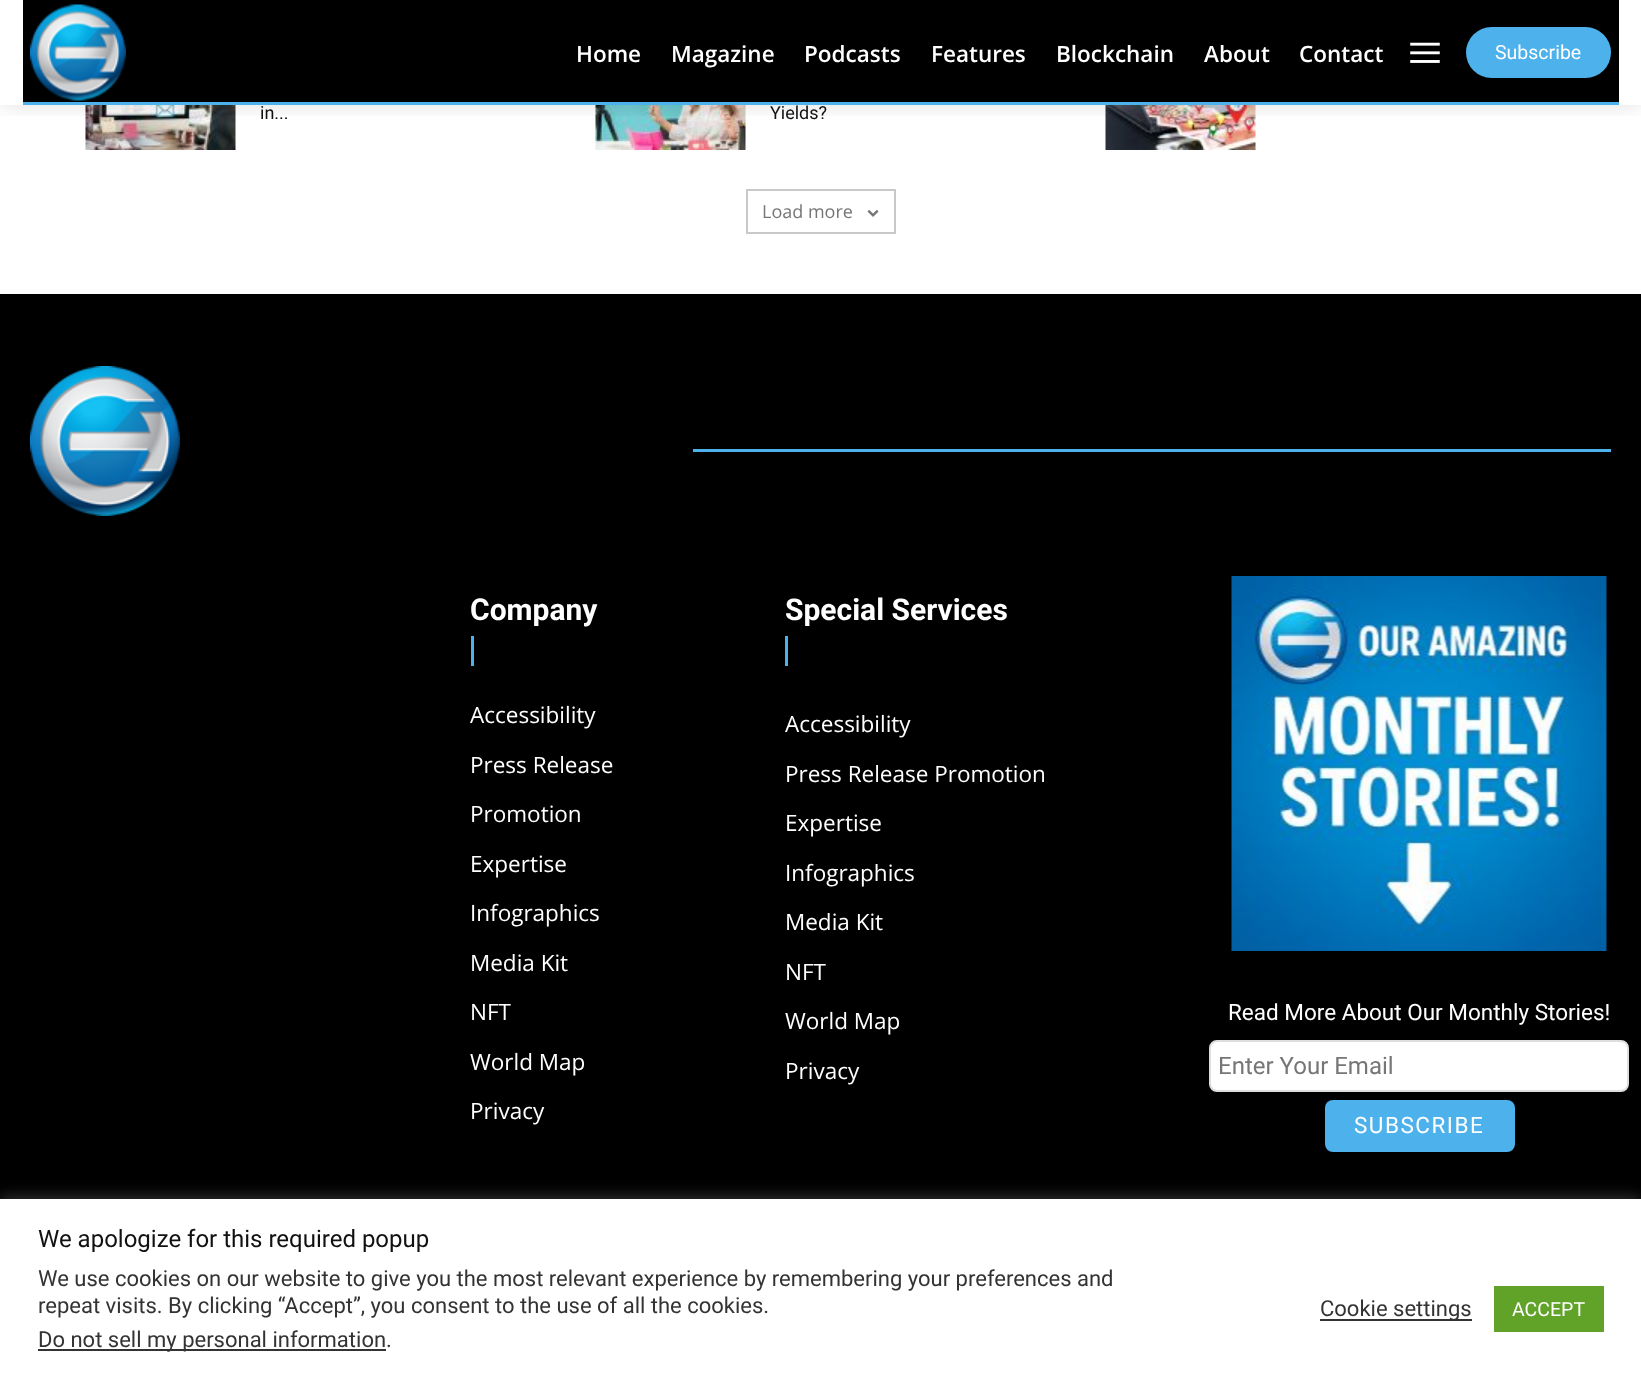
<svg xmlns="http://www.w3.org/2000/svg" xmlns:xlink="http://www.w3.org/1999/xlink" width="1641" height="1373" viewBox="0 0 1641 1373">
<style>
.cls-1{font:600 22.5px Open Sans;fill:#ffffff}
.cls-2{font:19.5px Roboto;fill:#ffffff}
.cls-3{font:18px Roboto;fill:#111111}
.cls-4{font:18px Open Sans;fill:#767676}
.cls-5{font:bold 30px Roboto;fill:#ffffff}
.cls-6{font:22.5px Open Sans;fill:#ffffff}
.cls-7{font:22.5px Roboto;fill:#ffffff}
.cls-8{font:24px Roboto;fill:#767676}
.cls-9{font:22.5px Roboto;letter-spacing:1.5px;fill:#ffffff}
.cls-10{font:24px Roboto;fill:#111111}
.cls-11{font:22px Roboto;fill:#333333}
</style>
<defs>
<clipPath id="clip1"><rect x="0" y="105" width="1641" height="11"/></clipPath>
</defs>
<rect width="100%" height="100%" fill="#ffffff"/>
<rect fill="#000000" x="23" y="0" width="1596" height="102"/>
<rect fill="#4db2ec" x="23" y="102" width="1596" height="3"/>
<image xlink:href="image0.png" x="30" y="4" width="96" height="97"/>
<image xlink:href="image1.png" x="1410" y="42" width="30" height="21"/>
<rect fill="#4db2ec" x="1466" y="27" width="145" height="51" rx="25.5"/>
<image xlink:href="image2.png" x="85" y="105" width="151" height="45"/>
<image xlink:href="image3.png" x="595" y="105" width="151" height="45"/>
<image xlink:href="image4.png" x="1105" y="105" width="151" height="45"/>
<g clip-path="url(#clip1)">
<rect fill="#000000" fill-opacity="0.12" filter="blur(11px)" x="0" y="0" width="1641" height="105"/>
</g>
<rect fill="none" stroke="#c9c9c9" stroke-width="2" x="747" y="190" width="148" height="43"/>
<image xlink:href="image5.png" x="867" y="210" width="12" height="7"/>
<rect fill="#000000" x="0" y="294" width="1641" height="905"/>
<image xlink:href="image6.png" x="30" y="366" width="150" height="150"/>
<rect fill="#4db2ec" x="693" y="449" width="918" height="3"/>
<rect fill="#4db2ec" x="471" y="636" width="3" height="30"/>
<rect fill="#4db2ec" x="785" y="636" width="3" height="30"/>
<image xlink:href="image7.png" x="1231" y="576" width="376" height="375"/>
<rect fill="#ffffff" stroke="#dddddd" stroke-width="2" x="1210" y="1041" width="418" height="50" rx="7"/>
<rect fill="#4db2ec" x="1325" y="1100" width="190" height="52" rx="8"/>
<rect fill="#acabab" fill-opacity="0.3" filter="blur(7.5px)" x="0" y="1197" width="1641" height="176"/>
<rect fill="#ffffff" x="0" y="1199" width="1641" height="174"/>
<rect fill="#333333" x="38" y="1349" width="348" height="2"/>
<rect fill="#333333" x="1320" y="1319" width="152" height="2"/>
<rect fill="#61a229" x="1494" y="1286" width="110" height="46"/>
<text class="cls-1" x="576" y="62">Home</text>
<text class="cls-1" x="671" y="62">Magazine</text>
<text class="cls-1" x="804" y="62">Podcasts</text>
<text class="cls-1" x="931" y="62">Features</text>
<text class="cls-1" x="1056" y="62">Blockchain</text>
<text class="cls-1" x="1204" y="62">About</text>
<text class="cls-1" x="1299" y="62">Contact</text>
<text class="cls-2" x="1495" y="59">Subscribe</text>
<text class="cls-3" x="260" y="119">in...</text>
<text class="cls-3" x="770" y="119">Yields?</text>
<text class="cls-4" x="762" y="218">Load more</text>
<text class="cls-5" x="470" y="620">Company</text>
<text class="cls-6" x="470" y="723">Accessibility</text>
<text class="cls-6" x="470" y="773">Press Release</text>
<text class="cls-6" x="470" y="822">Promotion</text>
<text class="cls-6" x="470" y="872">Expertise</text>
<text class="cls-6" x="470" y="921">Infographics</text>
<text class="cls-6" x="470" y="971">Media Kit</text>
<text class="cls-6" x="470" y="1020">NFT</text>
<text class="cls-6" x="470" y="1070">World Map</text>
<text class="cls-6" x="470" y="1119">Privacy</text>
<text class="cls-5" x="785" y="620">Special Services</text>
<text class="cls-6" x="785" y="732">Accessibility</text>
<text class="cls-6" x="785" y="782">Press Release Promotion</text>
<text class="cls-6" x="785" y="831">Expertise</text>
<text class="cls-6" x="785" y="881">Infographics</text>
<text class="cls-6" x="785" y="930">Media Kit</text>
<text class="cls-6" x="785" y="980">NFT</text>
<text class="cls-6" x="785" y="1029">World Map</text>
<text class="cls-6" x="785" y="1079">Privacy</text>
<text class="cls-7" x="1228" y="1020">Read More About Our Monthly Stories!</text>
<text class="cls-8" x="1218" y="1074">Enter Your Email</text>
<text class="cls-9" x="1354" y="1133">SUBSCRIBE</text>
<text class="cls-10" x="38" y="1247">We apologize for this required popup</text>
<text class="cls-11"><tspan x="38" y="1286">We use cookies on our website to give you the most relevant experience by remembering your preferences and</tspan><tspan x="38" y="1313">repeat visits. By clicking “Accept”, you consent to the use of all the cookies.</tspan><tspan x="38" y="1347">Do not sell my personal information.</tspan></text>
<text class="cls-11" x="1320" y="1316">Cookie settings</text>
<text class="cls-2" x="1512" y="1316">ACCEPT</text>
</svg>
